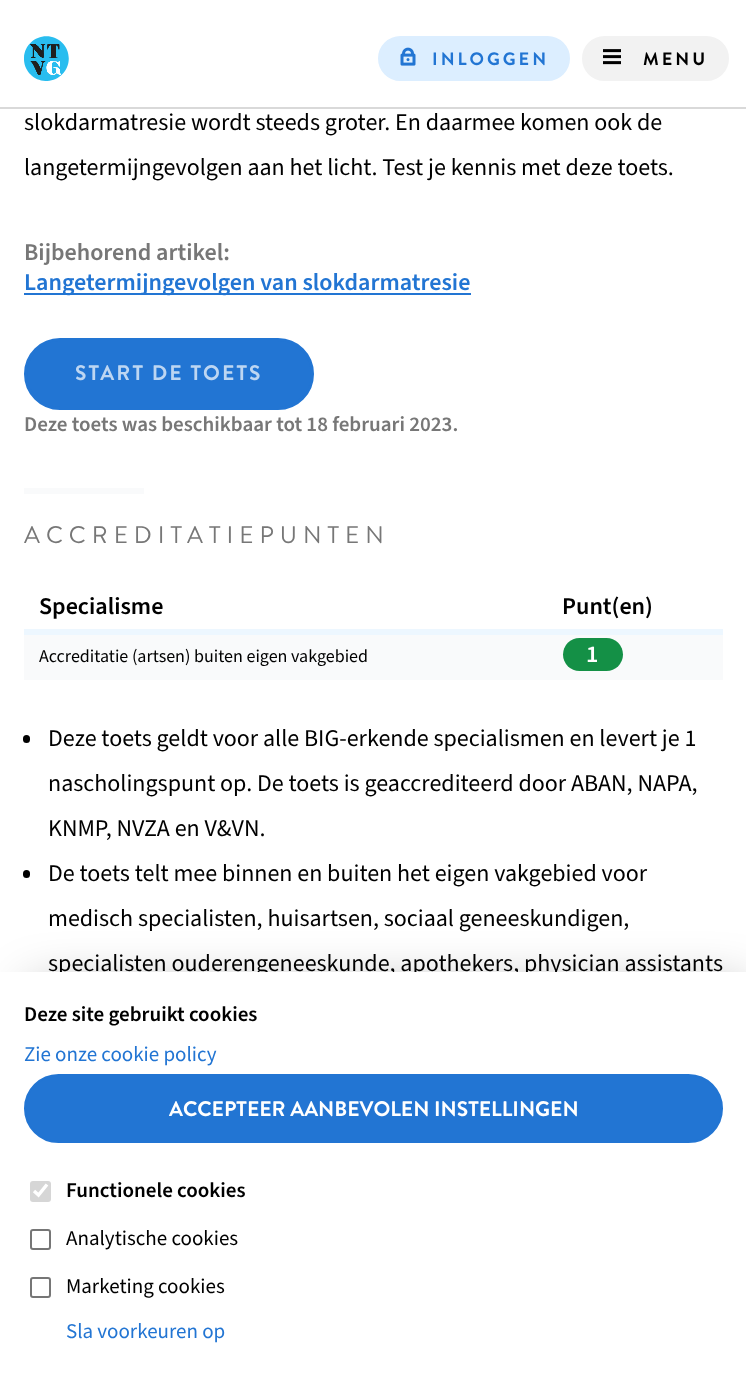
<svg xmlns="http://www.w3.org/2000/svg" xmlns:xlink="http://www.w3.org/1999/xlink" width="746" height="1392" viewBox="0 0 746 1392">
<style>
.cls-1{font:bold 18px Brandon Grotesque;letter-spacing:3px;fill:#2275d3}
.cls-2{font:bold 18px Brandon Grotesque;letter-spacing:3px;fill:#000000}
.cls-3{font:24px Source Sans Pro;fill:#000000}
.cls-4{font:600 24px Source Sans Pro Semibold;fill:#777777}
.cls-5{font:600 24px Source Sans Pro Semibold;fill:#2275d3}
.cls-6{font:bold 21px Brandon Grotesque;letter-spacing:2.1px;fill:#bdd6f2}
.cls-7{font:600 21px Source Sans Pro Semibold;fill:#777777}
.cls-8{font:24px Brandon Grotesque;letter-spacing:6px;fill:#777777}
.cls-9{font:600 24px Source Sans Pro Semibold;fill:#000000}
.cls-10{font:18px Source Sans Pro;fill:#000000}
.cls-11{font:600 24px Source Sans Pro Semibold;fill:#ffffff}
.cls-12{font:600 21px Source Sans Pro Semibold;fill:#000000}
.cls-13{font:21px Source Sans Pro;fill:#2275d3}
.cls-14{font:bold 21px Brandon Grotesque;fill:#ffffff}
.cls-15{font:21px Source Sans Pro;fill:#000000}
</style>
<rect width="100%" height="100%" fill="#ffffff"/>
<image xlink:href="image0.png" x="24" y="36" width="45" height="45"/>
<rect fill="#dceeff" stroke="#dceeff" stroke-width="3" x="379.5" y="37.5" width="189" height="42" rx="21"/>
<image xlink:href="image1.png" x="400" y="47" width="16" height="19"/>
<rect fill="#f2f2f2" stroke="#f2f2f2" stroke-width="3" x="583.5" y="37.5" width="144" height="42" rx="21"/>
<image xlink:href="image2.png" x="603" y="49" width="18" height="16"/>
<rect fill="#d9d9d9" x="0" y="107" width="746" height="2"/>
<rect fill="#2275d3" x="24" y="293" width="447" height="2"/>
<rect fill="#2275d3" stroke="#2275d3" stroke-width="3" x="25.5" y="339.5" width="287" height="69" rx="34.5"/>
<rect fill="#f9fafb" x="24" y="488" width="120" height="6"/>
<rect fill="#edf7ff" x="24" y="629" width="699" height="6"/>
<rect fill="#f9fafb" x="24" y="635" width="699" height="45"/>
<rect fill="#149046" x="563" y="638" width="60" height="33" rx="16.5"/>
<rect fill="#000000" x="23" y="735" width="7" height="8" rx="3.5"/>
<rect fill="#000000" x="23" y="870" width="7" height="8" rx="3.5"/>
<rect fill="#000000" fill-opacity="0.3" filter="blur(25.5px)" x="30" y="987" width="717" height="390"/>
<text class="cls-1" x="432" y="65">INLOGGEN</text>
<text class="cls-2" x="643" y="65">MENU</text>
<text class="cls-3"><tspan x="24" y="130">slokdarmatresie wordt steeds groter. En daarmee komen ook de</tspan><tspan x="24" y="175">langetermijngevolgen aan het licht. Test je kennis met deze toets.</tspan></text>
<text class="cls-4" x="24" y="260">Bijbehorend artikel:</text>
<text class="cls-5" x="24" y="290">Langetermijngevolgen van slokdarmatresie</text>
<text class="cls-6" x="75" y="380">START DE TOETS</text>
<text class="cls-7" x="24" y="431">Deze toets was beschikbaar tot 18 februari 2023.</text>
<text class="cls-8" x="24" y="543">ACCREDITATIEPUNTEN</text>
<text class="cls-9" x="39" y="614">Specialisme</text>
<text class="cls-9" x="562" y="614">Punt(en)</text>
<text class="cls-10" x="39" y="662">Accreditatie (artsen) buiten eigen vakgebied</text>
<text class="cls-11" x="586" y="662">1</text>
<text class="cls-3"><tspan x="48" y="746">Deze toets geldt voor alle BIG-erkende specialismen en levert je 1</tspan><tspan x="48" y="791">nascholingspunt op. De toets is geaccrediteerd door ABAN, NAPA,</tspan><tspan x="48" y="836">KNMP, NVZA en V&amp;VN.</tspan><tspan x="48" y="881">De toets telt mee binnen en buiten het eigen vakgebied voor</tspan><tspan x="48" y="926">medisch specialisten, huisartsen, sociaal geneeskundigen,</tspan><tspan x="48" y="971">specialisten ouderengeneeskunde, apothekers, physician assistants</tspan></text>
<rect fill="#ffffff" x="0" y="972" width="746" height="420"/>
<text class="cls-12" x="24" y="1021">Deze site gebruikt cookies</text>
<text class="cls-13" x="24" y="1061">Zie onze cookie policy</text>
<rect fill="#2275d3" stroke="#2275d3" stroke-width="2" x="25" y="1075" width="697" height="67" rx="33.5"/>
<text class="cls-14" x="169" y="1116">ACCEPTEER AANBEVOLEN INSTELLINGEN</text>
<rect fill="#d6d6d6" x="30" y="1181" width="21" height="21" rx="3"/>
<path fill="none" stroke="#ffffff" stroke-width="3.4" d="M34 1191L38.5 1195L47 1184.5"/>
<text class="cls-12" x="66" y="1197">Functionele cookies</text>
<rect fill="none" stroke="#767676" stroke-width="2" x="31" y="1230" width="19" height="19" rx="2"/>
<text class="cls-15" x="66" y="1245">Analytische cookies</text>
<rect fill="none" stroke="#767676" stroke-width="2" x="31" y="1278" width="19" height="19" rx="2"/>
<text class="cls-15" x="66" y="1293">Marketing cookies</text>
<text class="cls-13" x="66" y="1338">Sla voorkeuren op</text>
</svg>
